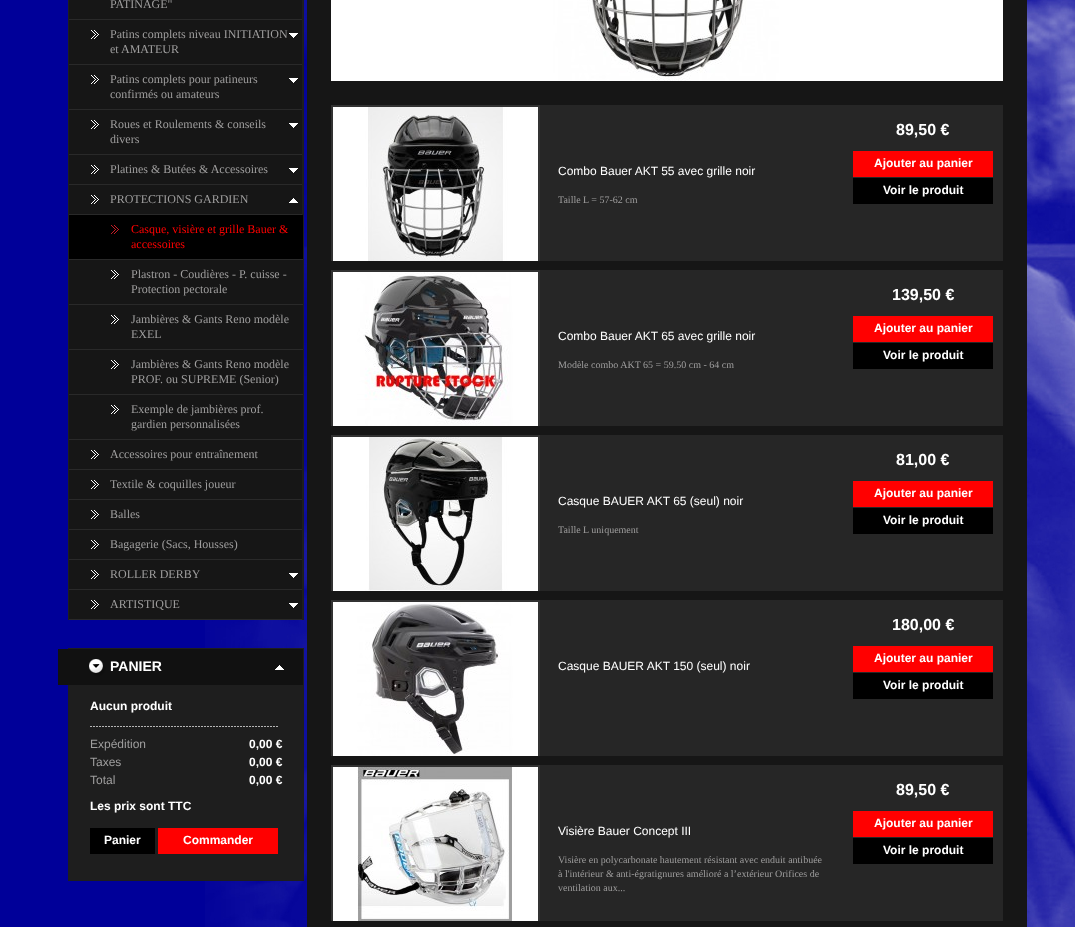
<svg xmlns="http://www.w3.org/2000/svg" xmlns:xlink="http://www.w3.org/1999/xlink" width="1075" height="927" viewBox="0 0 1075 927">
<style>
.cls-1{font:12px Liberation Serif;fill:#9f9e9e}
.cls-2{font:12px Liberation Serif;fill:#ff0000}
.cls-3{font:bold 14px Liberation Sans;fill:#ffffff}
.cls-4{font:bold 12px Liberation Sans;fill:#ffffff}
.cls-5{font:12px Liberation Sans;fill:#9f9e9e}
.cls-6{font:12px Liberation Sans;fill:#ffffff}
.cls-7{font:10px Liberation Serif;fill:#9f9e9e}
.cls-8{font:bold 16px Liberation Sans;fill:#ffffff}
</style>
<rect width="100%" height="100%" fill="#000099"/>
<image xlink:href="image0.png" x="205" y="0" width="870" height="927"/>
<rect fill="#1e1e1e" x="68" y="0" width="236" height="620"/>
<rect fill="#161616" x="69" y="0" width="233" height="19"/>
<rect fill="#292929" x="69" y="19" width="233" height="1"/>
<rect fill="#161616" x="69" y="20" width="233" height="44"/>
<image xlink:href="image1.png" x="91" y="30" width="8" height="9"/>
<rect fill="#292929" x="69" y="64" width="233" height="1"/>
<image xlink:href="image2.png" x="289" y="33" width="9" height="5"/>
<rect fill="#161616" x="69" y="65" width="233" height="44"/>
<image xlink:href="image1.png" x="91" y="75" width="8" height="9"/>
<rect fill="#292929" x="69" y="109" width="233" height="1"/>
<image xlink:href="image2.png" x="289" y="78" width="9" height="5"/>
<rect fill="#161616" x="69" y="110" width="233" height="44"/>
<image xlink:href="image1.png" x="91" y="120" width="8" height="9"/>
<rect fill="#292929" x="69" y="154" width="233" height="1"/>
<image xlink:href="image2.png" x="289" y="123" width="9" height="5"/>
<rect fill="#161616" x="69" y="155" width="233" height="29"/>
<image xlink:href="image1.png" x="91" y="165" width="8" height="9"/>
<rect fill="#292929" x="69" y="184" width="233" height="1"/>
<image xlink:href="image2.png" x="289" y="168" width="9" height="5"/>
<rect fill="#161616" x="69" y="185" width="233" height="29"/>
<image xlink:href="image1.png" x="91" y="195" width="8" height="9"/>
<rect fill="#292929" x="69" y="214" width="233" height="1"/>
<image xlink:href="image3.png" x="289" y="198" width="9" height="5"/>
<rect fill="#000000" x="69" y="215" width="234" height="44"/>
<image xlink:href="image4.png" x="111" y="225" width="8" height="9"/>
<rect fill="#292929" x="69" y="259" width="234" height="1"/>
<rect fill="#161616" x="69" y="260" width="234" height="44"/>
<image xlink:href="image1.png" x="111" y="270" width="8" height="9"/>
<rect fill="#292929" x="69" y="304" width="234" height="1"/>
<rect fill="#161616" x="69" y="305" width="234" height="44"/>
<image xlink:href="image1.png" x="111" y="315" width="8" height="9"/>
<rect fill="#292929" x="69" y="349" width="234" height="1"/>
<rect fill="#161616" x="69" y="350" width="234" height="44"/>
<image xlink:href="image1.png" x="111" y="360" width="8" height="9"/>
<rect fill="#292929" x="69" y="394" width="234" height="1"/>
<rect fill="#161616" x="69" y="395" width="234" height="44"/>
<image xlink:href="image1.png" x="111" y="405" width="8" height="9"/>
<rect fill="#292929" x="69" y="439" width="234" height="1"/>
<rect fill="#161616" x="69" y="440" width="233" height="29"/>
<image xlink:href="image1.png" x="91" y="450" width="8" height="9"/>
<rect fill="#292929" x="69" y="469" width="233" height="1"/>
<rect fill="#161616" x="69" y="470" width="233" height="29"/>
<image xlink:href="image1.png" x="91" y="480" width="8" height="9"/>
<rect fill="#292929" x="69" y="499" width="233" height="1"/>
<rect fill="#161616" x="69" y="500" width="233" height="29"/>
<image xlink:href="image1.png" x="91" y="510" width="8" height="9"/>
<rect fill="#292929" x="69" y="529" width="233" height="1"/>
<rect fill="#161616" x="69" y="530" width="233" height="29"/>
<image xlink:href="image1.png" x="91" y="540" width="8" height="9"/>
<rect fill="#292929" x="69" y="559" width="233" height="1"/>
<rect fill="#161616" x="69" y="560" width="233" height="29"/>
<image xlink:href="image1.png" x="91" y="570" width="8" height="9"/>
<rect fill="#292929" x="69" y="589" width="233" height="1"/>
<image xlink:href="image2.png" x="289" y="573" width="9" height="5"/>
<rect fill="#161616" x="69" y="590" width="233" height="29"/>
<image xlink:href="image1.png" x="91" y="600" width="8" height="9"/>
<rect fill="#292929" x="69" y="619" width="233" height="1"/>
<image xlink:href="image2.png" x="289" y="603" width="9" height="5"/>
<image xlink:href="image5.png" x="58" y="648" width="246" height="37"/>
<image xlink:href="image6.png" x="275" y="665" width="9" height="5"/>
<rect fill="#1e1e1e" x="68" y="685" width="236" height="196"/>
<image xlink:href="image7.png" x="90" y="726" width="188" height="1"/>
<rect fill="#000000" x="90" y="828" width="65" height="26"/>
<rect fill="#ff0000" x="158" y="828" width="120" height="26"/>
<rect fill="#161616" x="307" y="0" width="720" height="927"/>
<image xlink:href="image8.png" x="331" y="0" width="672" height="81"/>
<rect fill="#262626" x="540" y="105" width="463" height="156"/>
<rect fill="none" stroke="#323232" stroke-width="2" x="332" y="106" width="207" height="154"/>
<image xlink:href="image9.png" x="333" y="107" width="205" height="154"/>
<rect fill="#ff0000" x="853" y="151" width="140" height="26"/>
<rect fill="#000000" x="853" y="178" width="140" height="26"/>
<rect fill="#262626" x="540" y="270" width="463" height="156"/>
<rect fill="none" stroke="#323232" stroke-width="2" x="332" y="271" width="207" height="154"/>
<image xlink:href="image10.png" x="333" y="272" width="205" height="154"/>
<rect fill="#ff0000" x="853" y="316" width="140" height="26"/>
<rect fill="#000000" x="853" y="343" width="140" height="26"/>
<rect fill="#262626" x="540" y="435" width="463" height="156"/>
<rect fill="none" stroke="#323232" stroke-width="2" x="332" y="436" width="207" height="154"/>
<image xlink:href="image11.png" x="333" y="437" width="205" height="154"/>
<rect fill="#ff0000" x="853" y="481" width="140" height="26"/>
<rect fill="#000000" x="853" y="508" width="140" height="26"/>
<rect fill="#262626" x="540" y="600" width="463" height="156"/>
<rect fill="none" stroke="#323232" stroke-width="2" x="332" y="601" width="207" height="154"/>
<image xlink:href="image12.png" x="333" y="602" width="205" height="154"/>
<rect fill="#ff0000" x="853" y="646" width="140" height="26"/>
<rect fill="#000000" x="853" y="673" width="140" height="26"/>
<rect fill="#262626" x="540" y="765" width="463" height="156"/>
<rect fill="none" stroke="#323232" stroke-width="2" x="332" y="766" width="207" height="154"/>
<image xlink:href="image13.png" x="333" y="767" width="205" height="154"/>
<rect fill="#ff0000" x="853" y="811" width="140" height="26"/>
<rect fill="#000000" x="853" y="838" width="140" height="26"/>
<text class="cls-1" x="110" y="8">PATINAGE"</text>
<text class="cls-1"><tspan x="110" y="38">Patins complets niveau INITIATION</tspan><tspan x="110" y="53">et AMATEUR</tspan></text>
<text class="cls-1"><tspan x="110" y="83">Patins complets pour patineurs</tspan><tspan x="110" y="98">confirmés ou amateurs</tspan></text>
<text class="cls-1"><tspan x="110" y="128">Roues et Roulements &amp; conseils</tspan><tspan x="110" y="143">divers</tspan></text>
<text class="cls-1" x="110" y="173">Platines &amp; Butées &amp; Accessoires</text>
<text class="cls-1" x="110" y="203">PROTECTIONS GARDIEN</text>
<text class="cls-2"><tspan x="131" y="233">Casque, visière et grille Bauer &amp;</tspan><tspan x="131" y="248">accessoires</tspan></text>
<text class="cls-1"><tspan x="131" y="278">Plastron - Coudières - P. cuisse -</tspan><tspan x="131" y="293">Protection pectorale</tspan></text>
<text class="cls-1"><tspan x="131" y="323">Jambières &amp; Gants Reno modèle</tspan><tspan x="131" y="338">EXEL</tspan></text>
<text class="cls-1"><tspan x="131" y="368">Jambières &amp; Gants Reno modèle</tspan><tspan x="131" y="383">PROF. ou SUPREME (Senior)</tspan></text>
<text class="cls-1"><tspan x="131" y="413">Exemple de jambières prof.</tspan><tspan x="131" y="428">gardien personnalisées</tspan></text>
<text class="cls-1" x="110" y="458">Accessoires pour entraînement</text>
<text class="cls-1" x="110" y="488">Textile &amp; coquilles joueur</text>
<text class="cls-1" x="110" y="518">Balles</text>
<text class="cls-1" x="110" y="548">Bagagerie (Sacs, Housses)</text>
<text class="cls-1" x="110" y="578">ROLLER DERBY</text>
<text class="cls-1" x="110" y="608">ARTISTIQUE</text>
<text class="cls-3" x="110" y="671">PANIER</text>
<text class="cls-4" x="90" y="710">Aucun produit</text>
<text class="cls-5" x="90" y="748">Expédition</text>
<text class="cls-4" x="249" y="748">0,00 €</text>
<text class="cls-5" x="90" y="766">Taxes</text>
<text class="cls-4" x="249" y="766">0,00 €</text>
<text class="cls-5" x="90" y="784">Total</text>
<text class="cls-4" x="249" y="784">0,00 €</text>
<text class="cls-4" x="90" y="810">Les prix sont TTC</text>
<text class="cls-4" x="104" y="844">Panier</text>
<text class="cls-4" x="183" y="844">Commander</text>
<text class="cls-6" x="558" y="175">Combo Bauer AKT 55 avec grille noir</text>
<text class="cls-7" xml:space="preserve" x="558" y="203">Taille L = 57-62 cm  </text>
<text class="cls-8" x="896" y="135">89,50 €</text>
<text class="cls-4" x="874" y="167">Ajouter au panier</text>
<text class="cls-4" x="883" y="194">Voir le produit</text>
<text class="cls-6" x="558" y="340">Combo Bauer AKT 65 avec grille noir</text>
<text class="cls-7" x="558" y="368">Modèle combo AKT 65 = 59.50 cm - 64 cm</text>
<text class="cls-8" x="892" y="300">139,50 €</text>
<text class="cls-4" x="874" y="332">Ajouter au panier</text>
<text class="cls-4" x="883" y="359">Voir le produit</text>
<text class="cls-6" x="558" y="505">Casque BAUER AKT 65 (seul) noir</text>
<text class="cls-7" x="558" y="533">Taille L uniquement</text>
<text class="cls-8" x="896" y="465">81,00 €</text>
<text class="cls-4" x="874" y="497">Ajouter au panier</text>
<text class="cls-4" x="883" y="524">Voir le produit</text>
<text class="cls-6" x="558" y="670">Casque BAUER AKT 150 (seul) noir</text>
<text class="cls-8" x="892" y="630">180,00 €</text>
<text class="cls-4" x="874" y="662">Ajouter au panier</text>
<text class="cls-4" x="883" y="689">Voir le produit</text>
<text class="cls-6" x="558" y="835">Visière Bauer Concept III</text>
<text class="cls-7"><tspan x="558" y="863">Visière en polycarbonate hautement résistant avec enduit antibuée</tspan><tspan x="558" y="877">à l'intérieur &amp; anti-égratignures amélioré a l’extérieur Orifices de</tspan><tspan x="558" y="891">ventilation aux...</tspan></text>
<text class="cls-8" x="896" y="795">89,50 €</text>
<text class="cls-4" x="874" y="827">Ajouter au panier</text>
<text class="cls-4" x="883" y="854">Voir le produit</text>
</svg>
